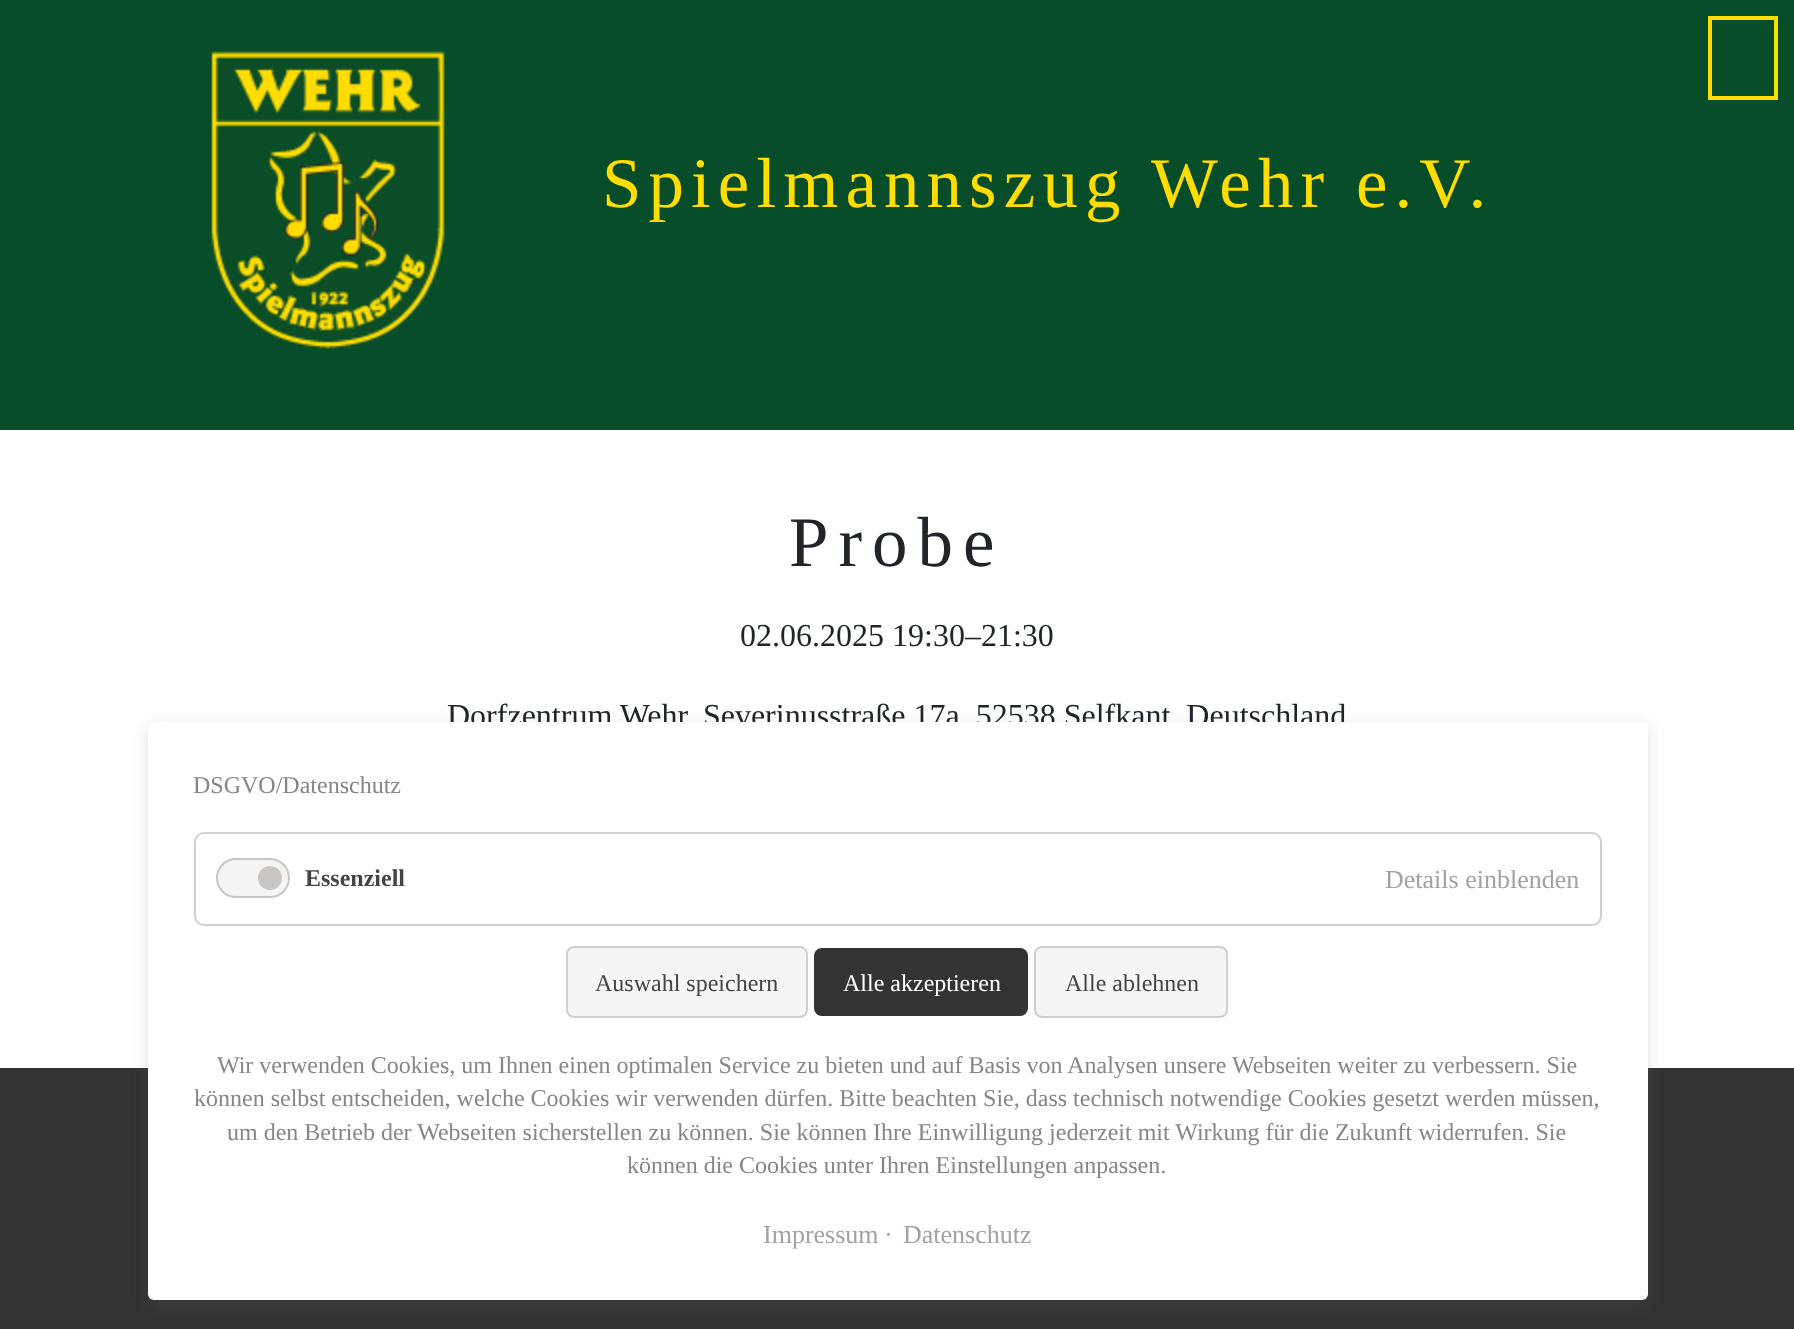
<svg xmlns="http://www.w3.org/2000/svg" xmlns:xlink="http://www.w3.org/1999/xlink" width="1794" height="1329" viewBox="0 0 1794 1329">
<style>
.cls-1{font:70.9px Liberation Serif;letter-spacing:7.1px;fill:#ffdd00}
.cls-2{font:70.9px Liberation Serif;letter-spacing:10px;fill:#212529}
.cls-3{font:32px Liberation Serif;fill:#212529}
.cls-4{font:24px Liberation Serif;fill:#868686}
.cls-5{font:bold 24px Liberation Serif;fill:#444444}
.cls-6{font:26px Liberation Serif;fill:#a2a2a2}
.cls-7{font:24px Liberation Serif;fill:#444444}
.cls-8{font:24px Liberation Serif;fill:#ffffff}
</style>
<rect width="100%" height="100%" fill="#ffffff"/>
<rect fill="#074d29" x="0" y="0" width="1794" height="430"/>
<rect fill="none" stroke="#ffdd00" stroke-width="4" x="1710" y="18" width="66" height="80"/>
<image xlink:href="image0.png" x="211" y="51" width="234" height="298"/>
<rect fill="#333333" x="0" y="1068" width="1794" height="261"/>
<rect fill="#636363" fill-opacity="0.2" filter="blur(8px)" x="148" y="726" width="1500" height="578" rx="6"/>
<text class="cls-1" x="602" y="207">Spielmannszug Wehr e.V.</text>
<text class="cls-2" x="789" y="566">Probe</text>
<text class="cls-3" x="740" y="646">02.06.2025 19:30–21:30</text>
<text class="cls-3" x="447" y="726">Dorfzentrum Wehr, Severinusstraße 17a, 52538 Selfkant, Deutschland</text>
<rect fill="#ffffff" x="148" y="722" width="1500" height="578" rx="6"/>
<text class="cls-4" x="193" y="793">DSGVO/Datenschutz</text>
<rect fill="none" stroke="#d0d0d0" stroke-width="2" x="195" y="833" width="1406" height="92" rx="9"/>
<rect fill="#f4f4f4" stroke="#c8c7c5" stroke-width="2" x="217" y="859" width="72" height="38" rx="19"/>
<circle fill="#c8c7c5" cx="270" cy="878" r="12"/>
<text class="cls-5" x="305" y="886">Essenziell</text>
<text class="cls-6" x="1385" y="888">Details einblenden</text>
<rect fill="#f5f5f5" stroke="#cfcfcf" stroke-width="2" x="567" y="947" width="240" height="70" rx="7"/>
<text class="cls-7" x="595" y="991">Auswahl speichern</text>
<rect fill="#333333" x="814" y="948" width="214" height="68" rx="8"/>
<text class="cls-8" x="843" y="991">Alle akzeptieren</text>
<rect fill="#f5f5f5" stroke="#cfcfcf" stroke-width="2" x="1035" y="947" width="192" height="70" rx="7"/>
<text class="cls-7" x="1065" y="991">Alle ablehnen</text>
<text class="cls-4" x="217" y="1073">Wir verwenden Cookies, um Ihnen einen optimalen Service zu bieten und auf Basis von Analysen unsere Webseiten weiter zu verbessern. Sie</text>
<text class="cls-4" x="194" y="1106">können selbst entscheiden, welche Cookies wir verwenden dürfen. Bitte beachten Sie, dass technisch notwendige Cookies gesetzt werden müssen,</text>
<text class="cls-4" x="227" y="1140">um den Betrieb der Webseiten sicherstellen zu können. Sie können Ihre Einwilligung jederzeit mit Wirkung für die Zukunft widerrufen. Sie</text>
<text class="cls-4" x="627" y="1173">können die Cookies unter Ihren Einstellungen anpassen.</text>
<text class="cls-6" x="763" y="1243">Impressum</text>
<text class="cls-6" x="884" y="1243">·</text>
<text class="cls-6" x="903" y="1243">Datenschutz</text>
</svg>
